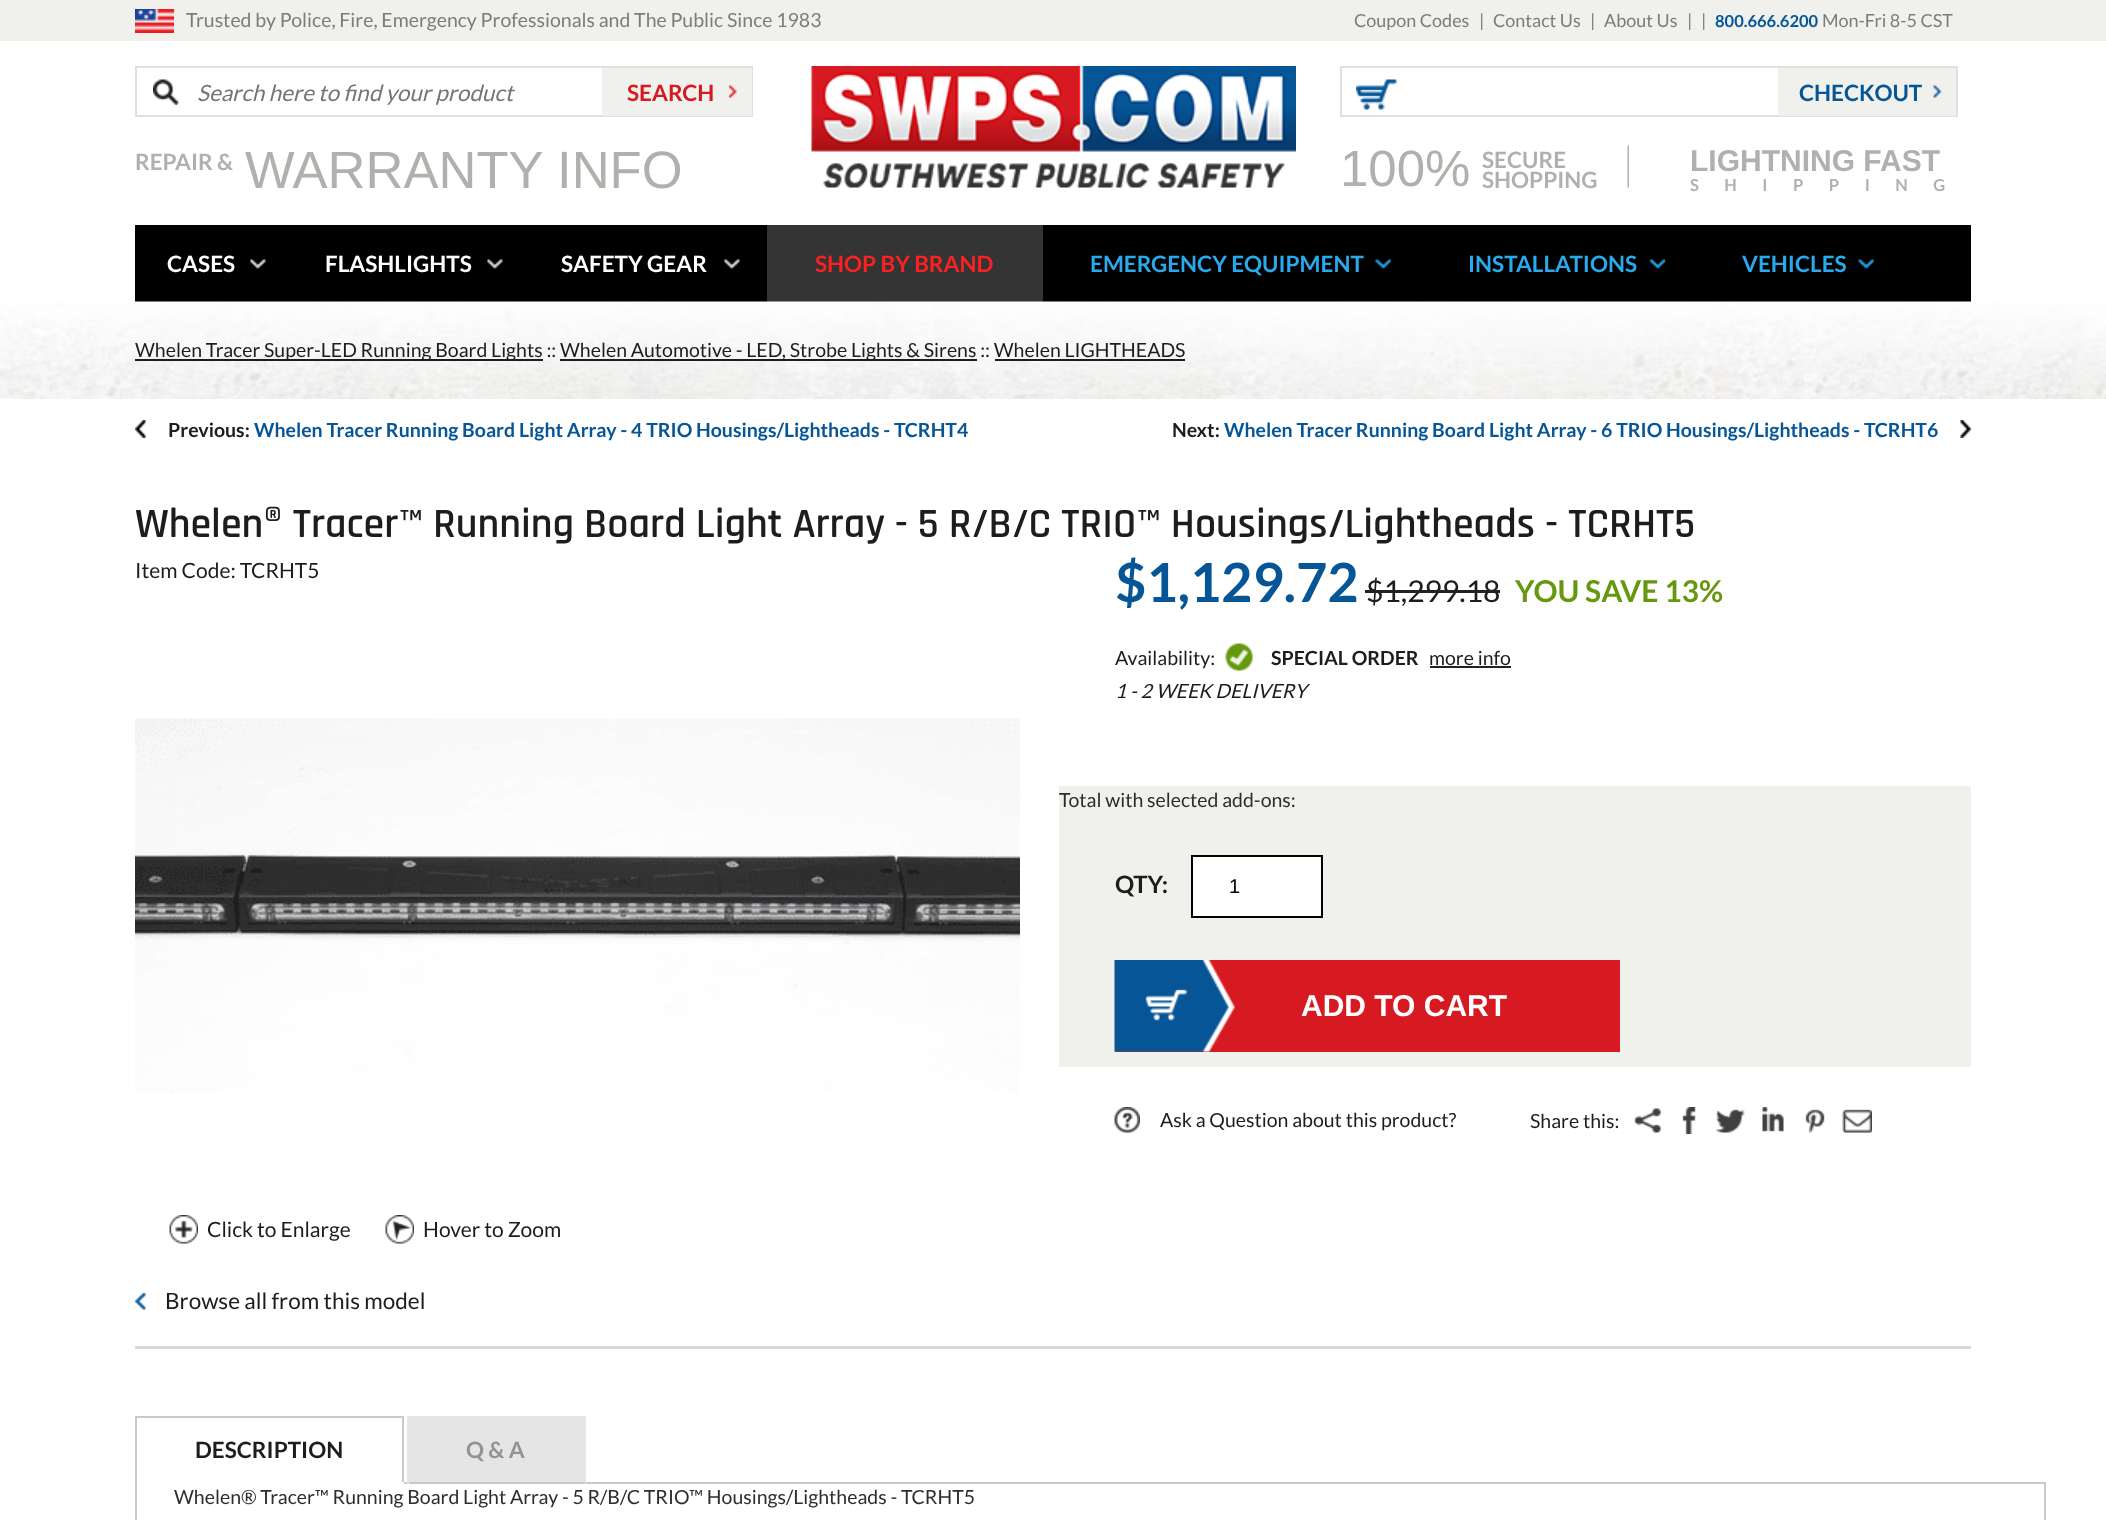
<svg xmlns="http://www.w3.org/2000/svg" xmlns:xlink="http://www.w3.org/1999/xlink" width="2106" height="1520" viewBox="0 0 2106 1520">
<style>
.cls-1{font:19.5px Lato;fill:#7c7c7a}
.cls-2{font:18px Lato;fill:#7c7c7a}
.cls-3{font:bold 16.5px Lato;fill:#065697}
.cls-4{font:italic 22.5px Lato;fill:#757575}
.cls-5{font:bold 22.5px Lato;fill:#d71921}
.cls-6{font:bold 22.5px Lato;fill:#b0b0ad}
.cls-7{font:52.5px Liberation Sans;fill:#b0b0ad}
.cls-8{font:bold 22.5px Lato;fill:#065697}
.cls-9{font:51px Liberation Sans;fill:#b0b0ad}
.cls-10{font:bold 30px Liberation Sans;fill:#b0b0ad}
.cls-11{font:bold 16.5px Lato;letter-spacing:25.5px;fill:#b0b0ad}
.cls-12{font:bold 22.5px Lato;fill:#ffffff}
.cls-13{font:bold 22.5px Lato;fill:#fc2121}
.cls-14{font:bold 22.5px Lato;fill:#2aaaec}
.cls-15{font:19.5px Lato;fill:#1d1d1d}
.cls-16{font:bold 19.5px Lato;fill:#1d1d1d}
.cls-17{font:bold 19.5px Lato;fill:#065697}
.cls-18{font:600 42px Rajdhani;fill:#1d1d1d}
.cls-19{font:21px Lato;fill:#1d1d1d}
.cls-20{font:bold 54px Lato;fill:#065697}
.cls-21{font:30px Lato;fill:#1d1d1d}
.cls-22{font:bold 30px Lato;fill:#66980f}
.cls-23{font:italic 19.5px Lato;fill:#1d1d1d}
.cls-24{font:19.5px Lato;fill:#2d2d2d}
.cls-25{font:bold 24px Lato;fill:#1d1d1d}
.cls-26{font:20px Liberation Sans;fill:#000000}
.cls-27{font:bold 30px Liberation Sans;fill:#ffffff}
.cls-28{font:22.5px Lato;fill:#1d1d1d}
.cls-29{font:bold 22.5px Lato;fill:#1d1d1d}
.cls-30{font:bold 22.5px Lato;fill:#949393}
</style>
<rect width="100%" height="100%" fill="#ffffff"/>
<rect fill="#f0f0ec" x="0" y="0" width="2106" height="41"/>
<image xlink:href="image0.png" x="135" y="9" width="39" height="24"/>
<rect fill="none" stroke="#e0e0e0" stroke-width="2" x="136" y="67" width="616" height="49"/>
<image xlink:href="image1.png" x="153" y="79" width="26" height="26"/>
<rect fill="#f0f0ec" x="602" y="68" width="150" height="48"/>
<image xlink:href="image2.png" x="729" y="85" width="8" height="13"/>
<image xlink:href="image3.png" x="811" y="66" width="485" height="122"/>
<rect fill="none" stroke="#e0e0e0" stroke-width="2" x="1341" y="67" width="616" height="49"/>
<image xlink:href="image4.png" x="1356" y="79" width="41" height="31"/>
<rect fill="#f0f0ec" x="1778" y="68" width="178" height="48"/>
<image xlink:href="image5.png" x="1933" y="85" width="9" height="13"/>
<image xlink:href="image6.png" x="1627" y="145" width="2" height="43"/>
<rect fill="#000000" x="135" y="225" width="1836" height="77"/>
<image xlink:href="image7.png" x="250" y="259" width="16" height="10"/>
<image xlink:href="image7.png" x="487" y="259" width="16" height="10"/>
<image xlink:href="image8.png" x="724" y="259" width="16" height="10"/>
<rect fill="#343434" x="767" y="225" width="276" height="77"/>
<image xlink:href="image9.png" x="1375" y="259" width="16" height="10"/>
<image xlink:href="image10.png" x="1650" y="259" width="16" height="10"/>
<image xlink:href="image11.png" x="1858" y="259" width="16" height="10"/>
<image xlink:href="image12.png" x="0" y="301" width="2106" height="98"/>
<rect fill="#1d1d1d" x="135" y="359" width="408" height="2"/>
<rect fill="#1d1d1d" x="560" y="359" width="417" height="2"/>
<rect fill="#1d1d1d" x="995" y="359" width="190" height="2"/>
<image xlink:href="image13.png" x="135" y="420" width="11" height="18"/>
<image xlink:href="image14.png" x="1960" y="420" width="11" height="18"/>
<image xlink:href="image15.png" x="135" y="718" width="885" height="375"/>
<image xlink:href="image16.png" x="169" y="1215" width="29" height="29"/>
<image xlink:href="image17.png" x="385" y="1215" width="29" height="29"/>
<image xlink:href="image18.png" x="1225" y="643" width="28" height="28"/>
<rect fill="#222222" x="1430" y="666" width="81" height="2"/>
<rect fill="#f0f0ec" x="1059" y="786" width="912" height="281"/>
<rect fill="#ffffff" stroke="#000000" stroke-width="2" x="1192" y="856" width="130" height="61"/>
<rect fill="#d71921" x="1115" y="960" width="505" height="92"/>
<image xlink:href="image19.png" x="1114" y="960" width="121" height="92"/>
<image xlink:href="image20.png" x="1114" y="1107" width="26" height="26"/>
<image xlink:href="image21.png" x="1634" y="1108" width="27" height="25"/>
<image xlink:href="image22.png" x="1682" y="1107" width="14" height="27"/>
<image xlink:href="image23.png" x="1716" y="1109" width="29" height="24"/>
<image xlink:href="image24.png" x="1762" y="1107" width="22" height="25"/>
<image xlink:href="image25.png" x="1805" y="1109" width="20" height="24"/>
<image xlink:href="image26.png" x="1842" y="1109" width="30" height="24"/>
<image xlink:href="image27.png" x="135" y="1293" width="11" height="17"/>
<rect fill="#dadad2" x="135" y="1346" width="1836" height="3"/>
<rect fill="#c9c9c9" x="135" y="1416" width="269" height="2"/>
<rect fill="none" stroke="#c9c9c9" stroke-width="2" x="136" y="1483" width="1909" height="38"/>
<rect fill="#c9c9c9" x="402" y="1416" width="2" height="68"/>
<rect fill="#ffffff" x="135" y="1482" width="269" height="2"/>
<rect fill="#c9c9c9" x="135" y="1416" width="2" height="68"/>
<rect fill="#e5e5e5" x="409" y="1416" width="175" height="66"/>
<rect fill="#e5e5e5" x="584" y="1416" width="2" height="68"/>
<rect fill="#c9c9c9" x="584" y="1482" width="1" height="2"/>
<rect fill="#e5e5e5" x="407" y="1416" width="2" height="68"/>
<text class="cls-1" x="186" y="27">Trusted by Police, Fire, Emergency Professionals and The Public Since 1983</text>
<text class="cls-2" x="1354" y="27">Coupon Codes</text>
<text class="cls-2" x="1479" y="27">|</text>
<text class="cls-2" x="1493" y="27">Contact Us</text>
<text class="cls-2" x="1590" y="27">|</text>
<text class="cls-2" x="1604" y="27">About Us</text>
<text class="cls-2" x="1687" y="27">|</text>
<text class="cls-2" x="1701" y="27">|</text>
<text class="cls-3" x="1715" y="27">800.666.6200</text>
<text class="cls-2" x="1822" y="27">Mon-Fri 8-5 CST</text>
<text class="cls-4" x="197" y="101">Search here to find your product</text>
<text class="cls-5" x="627" y="101">SEARCH</text>
<text class="cls-6" x="135" y="170">REPAIR &amp;</text>
<text class="cls-7" x="245" y="188">WARRANTY INFO</text>
<text class="cls-8" x="1799" y="101">CHECKOUT</text>
<text class="cls-9" x="1340" y="186">100%</text>
<text class="cls-6"><tspan x="1482" y="168">SECURE</tspan><tspan x="1482" y="188">SHOPPING</tspan></text>
<text class="cls-10" x="1690" y="171">LIGHTNING FAST</text>
<text class="cls-11" x="1690" y="191">SHIPPING</text>
<text class="cls-12" x="167" y="272">CASES</text>
<text class="cls-12" x="325" y="272">FLASHLIGHTS</text>
<text class="cls-12" x="561" y="272">SAFETY GEAR</text>
<text class="cls-13" x="815" y="272">SHOP BY BRAND</text>
<text class="cls-14" x="1090" y="272">EMERGENCY EQUIPMENT</text>
<text class="cls-14" x="1468" y="272">INSTALLATIONS</text>
<text class="cls-14" x="1742" y="272">VEHICLES</text>
<text class="cls-15" x="135" y="357">Whelen Tracer Super-LED Running Board Lights ::</text>
<text class="cls-15" x="560" y="357">Whelen Automotive - LED, Strobe Lights &amp; Sirens :: Whelen LIGHTHEADS</text>
<text class="cls-16" x="168" y="437">Previous:</text>
<text class="cls-17" x="254" y="437">Whelen Tracer Running Board Light Array - 4 TRIO Housings/Lightheads - TCRHT4</text>
<text class="cls-16" x="1172" y="437">Next:</text>
<text class="cls-17" x="1224" y="437">Whelen Tracer Running Board Light Array - 6 TRIO Housings/Lightheads - TCRHT6</text>
<text class="cls-18" x="135" y="537">Whelen® Tracer™ Running Board Light Array - 5 R/B/C TRIO™ Housings/Lightheads - TCRHT5</text>
<text class="cls-19" x="135" y="578">Item Code: TCRHT5</text>
<text class="cls-19" x="207" y="1237">Click to Enlarge</text>
<text class="cls-19" x="423" y="1237">Hover to Zoom</text>
<text class="cls-20" x="1115" y="602">$1,129.72</text>
<text class="cls-21" x="1366" y="602">$1,299.18</text>
<rect fill="#222222" x="1365" y="590" width="135" height="3"/>
<text class="cls-22" x="1515" y="602">YOU SAVE 13%</text>
<text class="cls-15" x="1115" y="665">Availability:</text>
<text class="cls-16" x="1271" y="665">SPECIAL ORDER</text>
<text class="cls-15" x="1429" y="665">more info</text>
<text class="cls-23" x="1115" y="698">1 - 2 WEEK DELIVERY</text>
<text class="cls-24" x="1059" y="807">Total with selected add-ons:</text>
<text class="cls-25" x="1115" y="893">QTY:</text>
<text class="cls-26" x="1229" y="893">1</text>
<text class="cls-27" x="1301" y="1016">ADD TO CART</text>
<text class="cls-15" x="1160" y="1127">Ask a Question about this product?</text>
<text class="cls-15" x="1530" y="1128">Share this:</text>
<text class="cls-28" x="165" y="1309">Browse all from this model</text>
<text class="cls-29" x="195" y="1458">DESCRIPTION</text>
<text class="cls-30" x="466" y="1458">Q &amp; A</text>
<text class="cls-24" x="174" y="1504">Whelen® Tracer™ Running Board Light Array - 5 R/B/C TRIO™ Housings/Lightheads - TCRHT5</text>
</svg>
